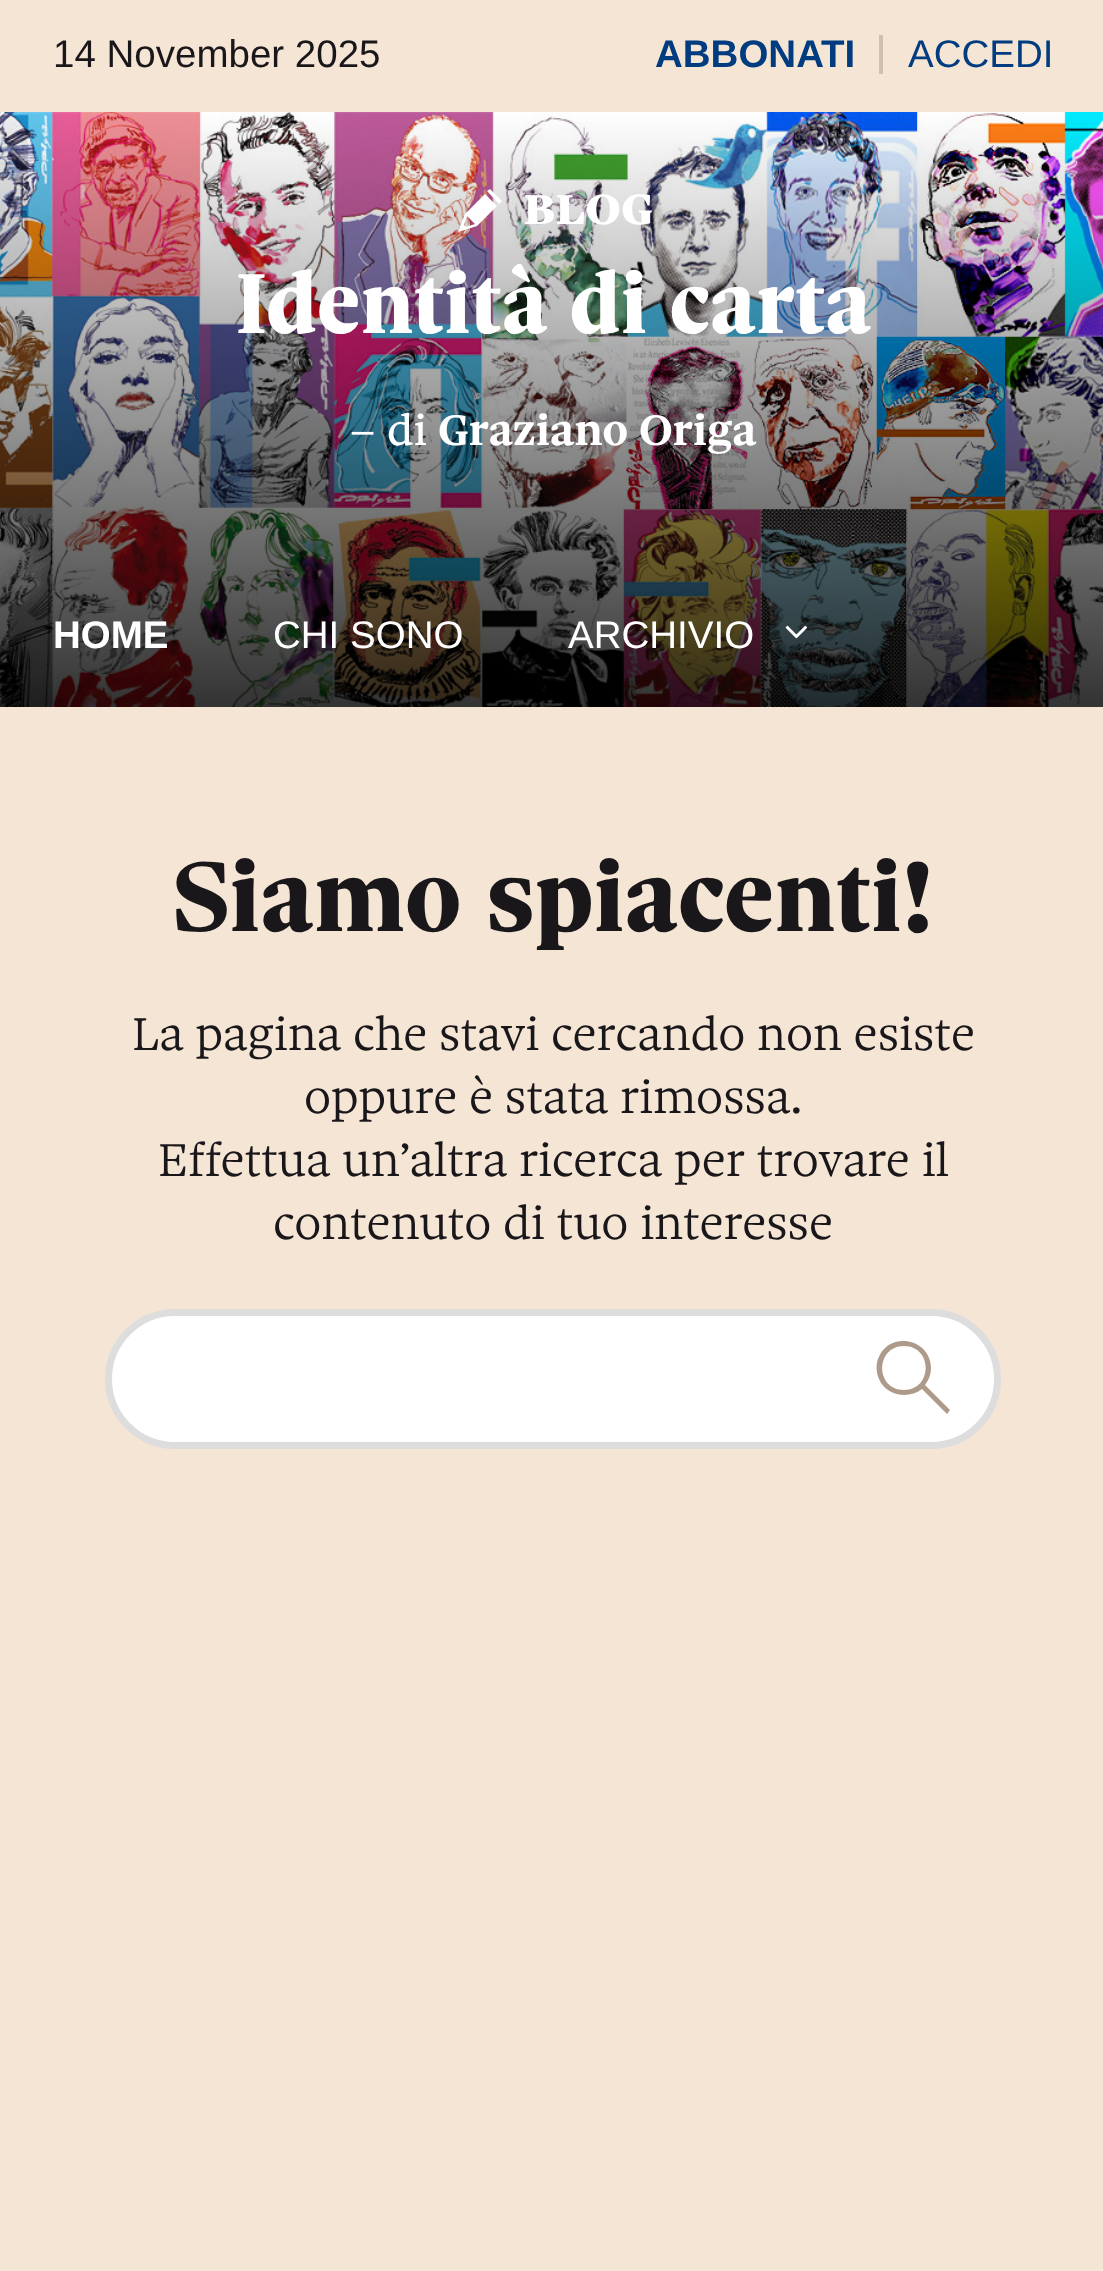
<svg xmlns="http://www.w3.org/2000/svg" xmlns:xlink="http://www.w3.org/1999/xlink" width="1103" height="2271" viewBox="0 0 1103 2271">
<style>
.cls-1{font:38.5px Liberation Sans;fill:#1a171b}
.cls-2{font:bold 38.5px Liberation Sans;fill:#003c7f}
.cls-3{font:38.5px Liberation Sans;fill:#003c7f}
.cls-4{font:bold 56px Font;fill:#ffffff}
.cls-5{font:bold 91px 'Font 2';fill:#ffffff}
.cls-6{font:45.5px Font;fill:#ffffff}
.cls-7{font:bold 45.5px 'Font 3';fill:#ffffff}
.cls-8{font:bold 38.5px Liberation Sans;fill:#ffffff}
.cls-9{font:38.5px Liberation Sans;fill:#ffffff}
.cls-10{font:bold 105px 'Font 2';fill:#1a171b}
.cls-11{font:300 49px Font;fill:#1a171b}
</style>
<rect width="100%" height="100%" fill="#f5e5d5"/>
<rect fill="#d1c0af" x="879" y="35" width="4" height="39"/>
<image xlink:href="image0.png" x="0" y="112" width="1103" height="595"/>
<path fill="#ffffff" d="M465 214L458 232L477 226L497 206L485 194ZM466 227L464 225L467 216L475 224ZM490 189L502 201L499 204L487 191Z"/>
<image xlink:href="image1.png" x="785" y="625" width="22" height="14"/>
<rect fill="#ffffff" stroke="#dddddd" stroke-width="7" x="108.5" y="1312.5" width="889" height="133" rx="66.5"/>
<path fill="#ad9a88" d="M947 1414L922 1389C909 1399 890 1396 881 1383C877 1376 875 1367 878 1359C888 1330 931 1338 931 1368C931 1374 929 1380 925 1385L950 1410ZM904 1346C875 1346 875 1390 904 1390C933 1390 933 1346 904 1346Z"/>
<text class="cls-1" x="53" y="67">14 November 2025</text>
<text class="cls-2" x="655" y="67">ABBONATI</text>
<text class="cls-3" x="908" y="67">ACCEDI</text>
<text class="cls-4" x="523" y="224">blog</text>
<text class="cls-5" x="235" y="333">Identità di carta</text>
<text class="cls-6" x="349" y="445">– di</text>
<text class="cls-7" x="438" y="445">Graziano Origa</text>
<text class="cls-8" x="53" y="648">HOME</text>
<text class="cls-9" x="273" y="648">CHI SONO</text>
<text class="cls-9" x="568" y="648">ARCHIVIO</text>
<text class="cls-10" x="172" y="931">Siamo spiacenti!</text>
<text class="cls-11" x="132" y="1050">La pagina che stavi cercando non esiste</text>
<text class="cls-11" x="304" y="1113">oppure è stata rimossa.</text>
<text class="cls-11" x="158" y="1176">Effettua un’altra ricerca per trovare il</text>
<text class="cls-11" x="273" y="1239">contenuto di tuo interesse</text>
</svg>
